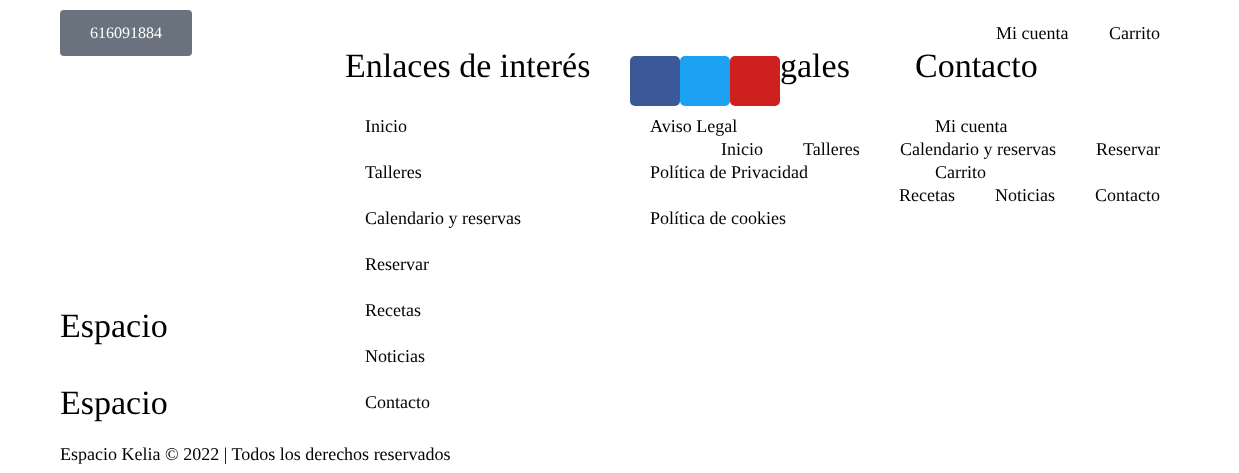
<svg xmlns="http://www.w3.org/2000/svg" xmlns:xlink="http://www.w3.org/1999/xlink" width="1239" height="473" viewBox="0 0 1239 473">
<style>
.cls-1{font:16px Liberation Serif;fill:#ffffff}
.cls-2{font:18px Liberation Serif;fill:#000000}
.cls-3{font:34px Liberation Serif;fill:#000000}
</style>
<rect width="100%" height="100%" fill="#ffffff"/>
<rect fill="#69727d" x="60" y="10" width="132" height="46" rx="4"/>
<rect fill="#3b5998" x="630" y="56" width="50" height="50" rx="5"/>
<rect fill="#1da1f2" x="680" y="56" width="50" height="50" rx="5"/>
<rect fill="#cd201f" x="730" y="56" width="50" height="50" rx="5"/>
<text class="cls-1" x="90" y="38">616091884</text>
<text class="cls-2" x="996" y="39">Mi cuenta</text>
<text class="cls-2" x="1109" y="39">Carrito</text>
<text class="cls-2" x="721" y="155">Inicio</text>
<text class="cls-2" x="803" y="155">Talleres</text>
<text class="cls-2" x="900" y="155">Calendario y reservas</text>
<text class="cls-2" x="1096" y="155">Reservar</text>
<text class="cls-2" x="899" y="201">Recetas</text>
<text class="cls-2" x="995" y="201">Noticias</text>
<text class="cls-2" x="1095" y="201">Contacto</text>
<text class="cls-3" x="60" y="414">Espacio</text>
<text class="cls-3" x="345" y="77">Enlaces de interés</text>
<text class="cls-2" x="365" y="132">Inicio</text>
<text class="cls-2" x="365" y="178">Talleres</text>
<text class="cls-2" x="365" y="224">Calendario y reservas</text>
<text class="cls-2" x="365" y="270">Reservar</text>
<text class="cls-2" x="365" y="316">Recetas</text>
<text class="cls-2" x="365" y="362">Noticias</text>
<text class="cls-2" x="365" y="408">Contacto</text>
<text class="cls-3" x="780" y="77">gales</text>
<text class="cls-2" x="650" y="132">Aviso Legal</text>
<text class="cls-2" x="650" y="178">Política de Privacidad</text>
<text class="cls-2" x="650" y="224">Política de cookies</text>
<text class="cls-3" x="915" y="77">Contacto</text>
<text class="cls-2" x="935" y="132">Mi cuenta</text>
<text class="cls-2" x="935" y="178">Carrito</text>
<text class="cls-3" x="60" y="337">Espacio</text>
<text class="cls-2" x="60" y="460">Espacio Kelia © 2022 | Todos los derechos reservados</text>
</svg>
